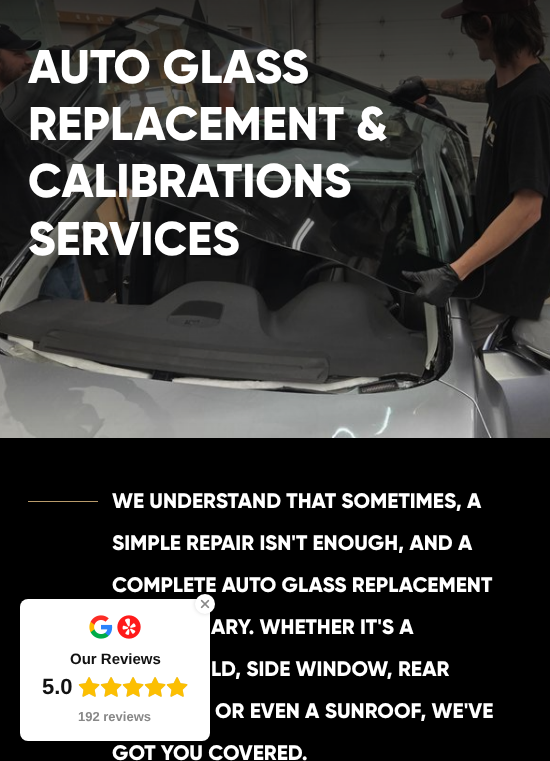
<svg xmlns="http://www.w3.org/2000/svg" xmlns:xlink="http://www.w3.org/1999/xlink" width="550" height="761" viewBox="0 0 550 761">
<style>
.cls-1{font:800 47.25px Gilroy;fill:#ffffff}
.cls-2{font:800 21px Gilroy;fill:#ffffff}
.cls-3{font:bold 15px Liberation Sans;fill:#111111}
.cls-4{font:bold 22px Liberation Sans;fill:#111111}
.cls-5{font:bold 13px Liberation Sans;fill:#888888}
</style>
<rect width="100%" height="100%" fill="#000000"/>
<image xlink:href="image0.png" x="0" y="0" width="550" height="438"/>
<rect fill="#b99b6b" x="28" y="501" width="70" height="1"/>
<rect fill="#000000" fill-opacity="0.15" filter="blur(15px)" x="20" y="609" width="190" height="142" rx="8"/>
<rect fill="#000000" fill-opacity="0.1" filter="blur(20px)" x="20" y="614" width="190" height="142" rx="8"/>
<rect fill="#ffffff" x="20" y="599" width="190" height="142" rx="8"/>
<rect fill="#000000" fill-opacity="0.15" filter="blur(2px)" x="195" y="594" width="20" height="20" rx="10"/>
<circle fill="#ffffff" cx="205" cy="604" r="10"/>
<image xlink:href="image1.png" x="200" y="599" width="10" height="10"/>
<image xlink:href="image2.png" x="89" y="615" width="24" height="24"/>
<image xlink:href="image3.png" x="117" y="615" width="24" height="24"/>
<image xlink:href="image5.png" x="79" y="677" width="21" height="20"/>
<image xlink:href="image4.png" x="78" y="677" width="22" height="20"/>
<image xlink:href="image5.png" x="101" y="677" width="21" height="20"/>
<image xlink:href="image4.png" x="100" y="677" width="22" height="20"/>
<image xlink:href="image5.png" x="123" y="677" width="21" height="20"/>
<image xlink:href="image4.png" x="122" y="677" width="22" height="20"/>
<image xlink:href="image5.png" x="145" y="677" width="21" height="20"/>
<image xlink:href="image4.png" x="144" y="677" width="22" height="20"/>
<image xlink:href="image5.png" x="167" y="677" width="21" height="20"/>
<image xlink:href="image4.png" x="166" y="677" width="22" height="20"/>
<text class="cls-1"><tspan x="28" y="83">AUTO GLASS</tspan><tspan x="28" y="140">REPLACEMENT &amp;</tspan><tspan x="28" y="197">CALIBRATIONS</tspan><tspan x="28" y="255">SERVICES</tspan></text>
<text class="cls-2" x="112" y="508">WE UNDERSTAND THAT SOMETIMES, A</text>
<text class="cls-2" x="112" y="550">SIMPLE REPAIR ISN'T ENOUGH, AND A</text>
<text class="cls-2" x="112" y="592">COMPLETE AUTO GLASS REPLACEMENT</text>
<text class="cls-2" x="211" y="634">ARY. WHETHER IT'S A</text>
<text class="cls-2" x="211" y="676">LD, SIDE WINDOW, REAR</text>
<text class="cls-2" x="215" y="718">OR EVEN A SUNROOF, WE'VE</text>
<text class="cls-2" x="112" y="760">GOT YOU COVERED.</text>
<text class="cls-3" x="70" y="664">Our Reviews</text>
<text class="cls-4" x="42" y="694">5.0</text>
<text class="cls-5" x="78" y="721">192 reviews</text>
</svg>
